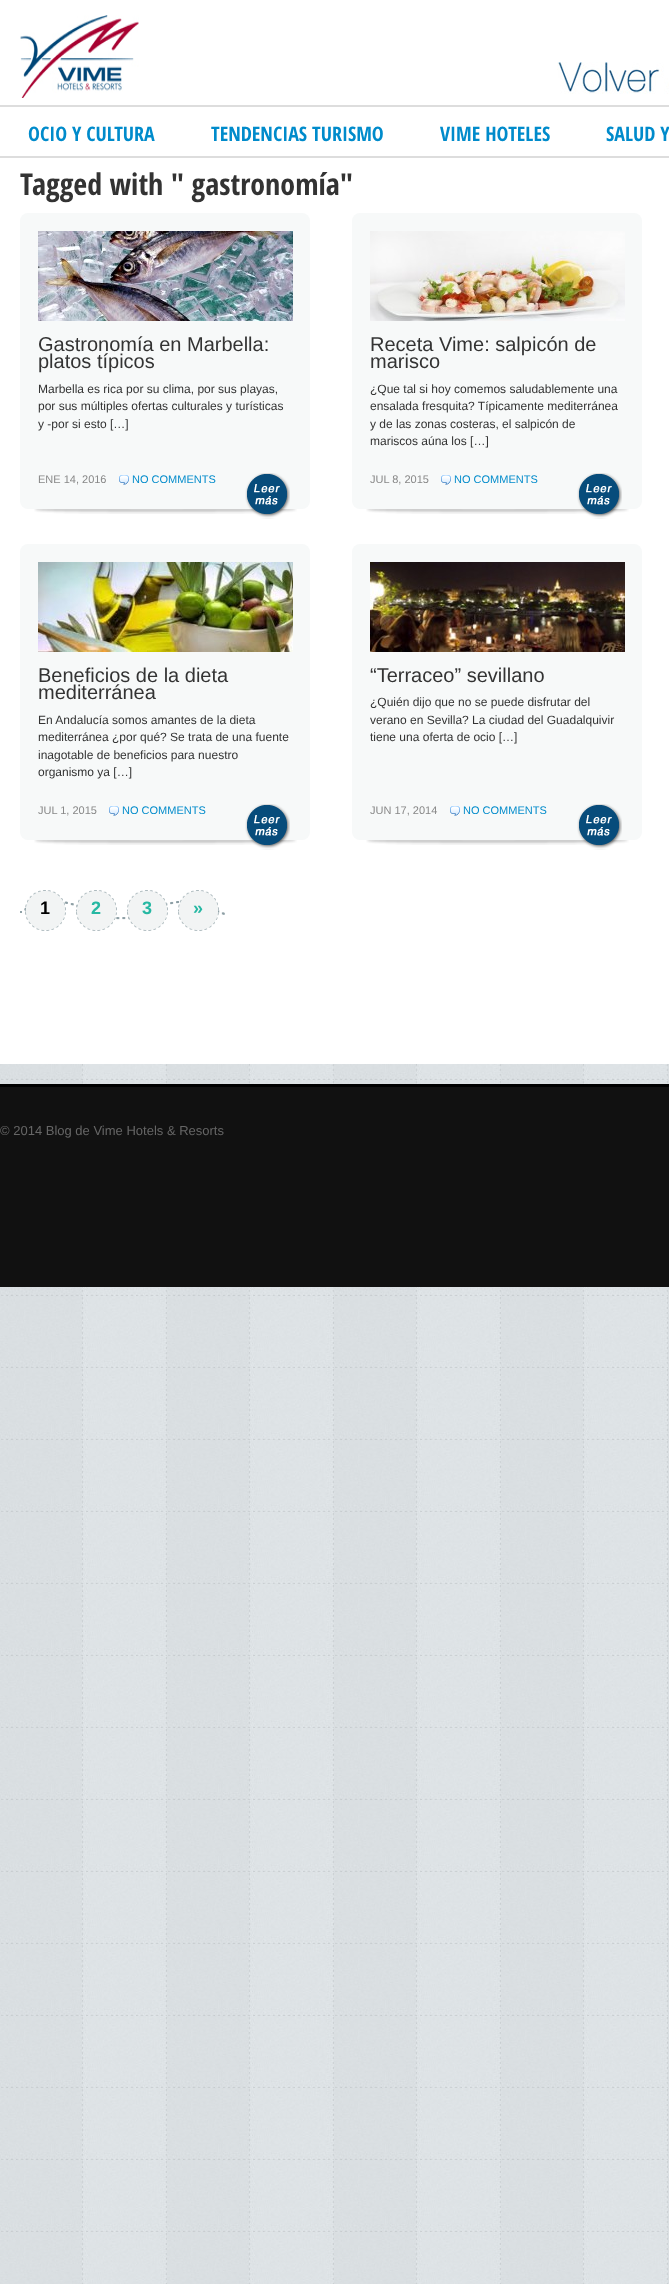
<svg xmlns="http://www.w3.org/2000/svg" xmlns:xlink="http://www.w3.org/1999/xlink" width="669" height="2284" viewBox="0 0 669 2284">
<style>
.cls-1{font:bold 20px Open Sans Condensed;fill:#008bcb}
.cls-2{font:bold 30px Open Sans Condensed;fill:#333333}
.cls-3{font:20px Liberation Sans;fill:#333333}
.cls-4{font:12px Liberation Sans;fill:#333333}
.cls-5{font:11px Liberation Sans;fill:#888888}
.cls-6{font:11px Liberation Sans;fill:#008bcb}
.cls-7{font:bold 18px Liberation Sans;fill:#000000}
.cls-8{font:bold 18px Liberation Sans;fill:#26b8a3}
.cls-9{font:13px Liberation Sans;fill:#666666}
</style>
<rect width="100%" height="100%" fill="#ffffff"/>
<image xlink:href="image0.png" x="0" y="1064" width="669" height="1220"/>
<image xlink:href="image1.png" x="20" y="15" width="119" height="83"/>
<image xlink:href="image2.png" x="557" y="62" width="112" height="32"/>
<rect fill="#dddddd" x="0" y="105" width="669" height="2"/>
<rect fill="#dddddd" x="0" y="156" width="669" height="2"/>
<image xlink:href="image3.png" x="34" y="509" width="263" height="5"/>
<rect fill="#f7f9f9" x="20" y="213" width="290" height="296" rx="8"/>
<image xlink:href="image4.png" x="38" y="231" width="255" height="90"/>
<image xlink:href="image5.png" x="119" y="475" width="10" height="10"/>
<image xlink:href="image6.png" x="245" y="473" width="45" height="46"/>
<image xlink:href="image3.png" x="366" y="509" width="263" height="5"/>
<rect fill="#f7f9f9" x="352" y="213" width="290" height="296" rx="8"/>
<image xlink:href="image7.png" x="370" y="231" width="255" height="90"/>
<image xlink:href="image5.png" x="441" y="475" width="10" height="10"/>
<image xlink:href="image6.png" x="577" y="473" width="45" height="46"/>
<image xlink:href="image3.png" x="34" y="840" width="263" height="5"/>
<rect fill="#f7f9f9" x="20" y="544" width="290" height="296" rx="8"/>
<image xlink:href="image8.png" x="38" y="562" width="255" height="90"/>
<image xlink:href="image5.png" x="109" y="806" width="10" height="10"/>
<image xlink:href="image6.png" x="245" y="804" width="45" height="46"/>
<image xlink:href="image3.png" x="366" y="840" width="263" height="5"/>
<rect fill="#f7f9f9" x="352" y="544" width="290" height="296" rx="8"/>
<image xlink:href="image9.png" x="370" y="562" width="255" height="90"/>
<image xlink:href="image5.png" x="450" y="806" width="10" height="10"/>
<image xlink:href="image6.png" x="577" y="804" width="45" height="46"/>
<image xlink:href="image10.png" x="20" y="901" width="205" height="19"/>
<image xlink:href="image11.png" x="25" y="890" width="41" height="41"/>
<image xlink:href="image12.png" x="76" y="890" width="41" height="41"/>
<image xlink:href="image13.png" x="127" y="890" width="41" height="41"/>
<image xlink:href="image14.png" x="178" y="890" width="41" height="41"/>
<rect fill="#111111" x="0" y="1087" width="669" height="200"/>
<rect fill="#000000" x="0" y="1084" width="669" height="3"/>
<text class="cls-1" x="28" y="141">OCIO Y CULTURA</text>
<text class="cls-1" x="211" y="141">TENDENCIAS TURISMO</text>
<text class="cls-1" x="440" y="141">VIME HOTELES</text>
<text class="cls-1" x="606" y="141">SALUD Y</text>
<text class="cls-2" x="20" y="195">Tagged with " gastronomía"</text>
<text class="cls-3"><tspan x="38" y="351">Gastronomía en Marbella:</tspan><tspan x="38" y="368">platos típicos</tspan></text>
<text class="cls-4"><tspan x="38" y="393">Marbella es rica por su clima, por sus playas,</tspan><tspan x="38" y="410">por sus múltiples ofertas culturales y turísticas</tspan><tspan x="38" y="428">y -por si esto […]</tspan></text>
<text class="cls-5" x="38" y="483">ENE 14, 2016</text>
<text class="cls-6" x="132" y="483">NO COMMENTS</text>
<text class="cls-3"><tspan x="370" y="351">Receta Vime: salpicón de</tspan><tspan x="370" y="368">marisco</tspan></text>
<text class="cls-4"><tspan x="370" y="393">¿Que tal si hoy comemos saludablemente una</tspan><tspan x="370" y="410">ensalada fresquita? Típicamente mediterránea</tspan><tspan x="370" y="428">y de las zonas costeras, el salpicón de</tspan><tspan x="370" y="445">mariscos aúna los […]</tspan></text>
<text class="cls-5" x="370" y="483">JUL 8, 2015</text>
<text class="cls-6" x="454" y="483">NO COMMENTS</text>
<text class="cls-3"><tspan x="38" y="682">Beneficios de la dieta</tspan><tspan x="38" y="699">mediterránea</tspan></text>
<text class="cls-4"><tspan x="38" y="724">En Andalucía somos amantes de la dieta</tspan><tspan x="38" y="741">mediterránea ¿por qué? Se trata de una fuente</tspan><tspan x="38" y="759">inagotable de beneficios para nuestro</tspan><tspan x="38" y="776">organismo ya […]</tspan></text>
<text class="cls-5" x="38" y="814">JUL 1, 2015</text>
<text class="cls-6" x="122" y="814">NO COMMENTS</text>
<text class="cls-3" x="370" y="682">“Terraceo” sevillano</text>
<text class="cls-4"><tspan x="370" y="706">¿Quién dijo que no se puede disfrutar del</tspan><tspan x="370" y="724">verano en Sevilla? La ciudad del Guadalquivir</tspan><tspan x="370" y="741">tiene una oferta de ocio […]</tspan></text>
<text class="cls-5" x="370" y="814">JUN 17, 2014</text>
<text class="cls-6" x="463" y="814">NO COMMENTS</text>
<text class="cls-7" x="40" y="914">1</text>
<text class="cls-8" x="91" y="914">2</text>
<text class="cls-8" x="142" y="914">3</text>
<text class="cls-8" x="193" y="914">»</text>
<text class="cls-9" x="0" y="1135">© 2014 Blog de Vime Hotels &amp; Resorts</text>
</svg>
